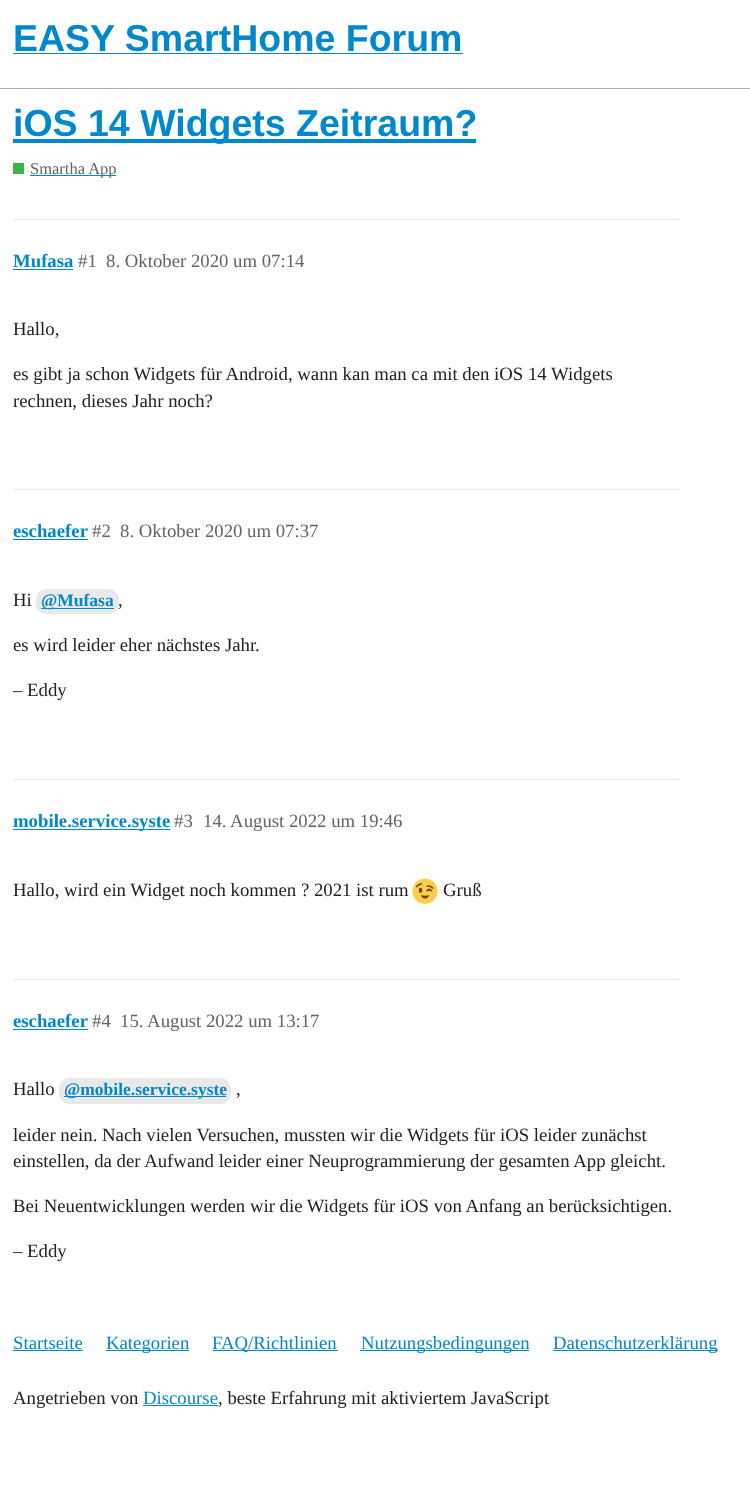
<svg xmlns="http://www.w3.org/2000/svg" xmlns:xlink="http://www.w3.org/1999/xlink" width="750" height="1510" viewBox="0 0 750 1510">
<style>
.cls-1{font:bold 37.5px Liberation Sans;fill:#0088cc}
.cls-2{font:16.5px Liberation Serif;fill:#646464}
.cls-3{font:bold 18.75px Liberation Serif;fill:#0088cc}
.cls-4{font:18.75px Liberation Serif;fill:#646464}
.cls-5{font:18.75px Liberation Serif;fill:#222222}
.cls-6{font:bold 17.5px Liberation Serif;fill:#0088cc}
.cls-7{font:18.75px Liberation Serif;fill:#0088cc}
</style>
<rect width="100%" height="100%" fill="#ffffff"/>
<rect fill="#afafaf" x="0" y="88" width="750" height="1"/>
<rect fill="#0088cc" x="13" y="53" width="450" height="1"/>
<rect fill="#0088cc" x="13" y="139" width="463" height="4"/>
<rect fill="#3ab54a" x="13" y="163" width="11" height="11"/>
<rect fill="#0088cc" x="30" y="175" width="86" height="1"/>
<rect fill="#e9e9e9" x="13" y="219" width="666" height="1"/>
<rect fill="#0088cc" x="13" y="269" width="60" height="1"/>
<rect fill="#e9e9e9" x="13" y="489" width="666" height="1"/>
<rect fill="#0088cc" x="13" y="539" width="75" height="1"/>
<rect fill="#e9e9e9" x="36" y="589" width="83" height="25" rx="10"/>
<rect fill="#0088cc" x="41" y="608" width="73" height="1"/>
<rect fill="#e9e9e9" x="13" y="779" width="666" height="1"/>
<rect fill="#0088cc" x="13" y="829" width="157" height="1"/>
<image xlink:href="image0.png" x="412" y="878" width="26" height="26"/>
<rect fill="#e9e9e9" x="13" y="979" width="666" height="1"/>
<rect fill="#0088cc" x="13" y="1029" width="75" height="1"/>
<rect fill="#e9e9e9" x="59" y="1078" width="172" height="26" rx="10"/>
<rect fill="#0088cc" x="64" y="1096" width="162" height="1"/>
<rect fill="#0088cc" x="13" y="1350" width="70" height="1"/>
<rect fill="#0088cc" x="106" y="1350" width="83" height="1"/>
<rect fill="#0088cc" x="213" y="1350" width="125" height="1"/>
<rect fill="#0088cc" x="360" y="1350" width="169" height="1"/>
<rect fill="#0088cc" x="553" y="1350" width="165" height="1"/>
<rect fill="#0088cc" x="143" y="1405" width="75" height="1"/>
<text class="cls-1" x="13" y="51">EASY SmartHome Forum</text>
<text class="cls-1" x="13" y="136">iOS 14 Widgets Zeitraum?</text>
<text class="cls-2" x="30" y="174">Smartha App</text>
<text class="cls-3" x="13" y="267">Mufasa</text>
<text class="cls-4" x="78" y="267">#1</text>
<text class="cls-4" x="106" y="267">8. Oktober 2020 um 07:14</text>
<text class="cls-5" x="13" y="335">Hallo,</text>
<text class="cls-5"><tspan x="13" y="380">es gibt ja schon Widgets für Android, wann kan man ca mit den iOS 14 Widgets</tspan><tspan x="13" y="407">rechnen, dieses Jahr noch?</tspan></text>
<text class="cls-3" x="13" y="537">eschaefer</text>
<text class="cls-4" x="92" y="537">#2</text>
<text class="cls-4" x="120" y="537">8. Oktober 2020 um 07:37</text>
<text class="cls-5" x="13" y="606">Hi</text>
<text class="cls-6" x="41" y="606">@Mufasa</text>
<text class="cls-5" x="118" y="606">,</text>
<text class="cls-5" x="13" y="651">es wird leider eher nächstes Jahr.</text>
<text class="cls-5" x="13" y="696">– Eddy</text>
<text class="cls-3" x="13" y="827">mobile.service.syste</text>
<text class="cls-4" x="174" y="827">#3</text>
<text class="cls-4" x="203" y="827">14. August 2022 um 19:46</text>
<text class="cls-5" x="13" y="896">Hallo, wird ein Widget noch kommen ? 2021 ist rum</text>
<text class="cls-5" x="443" y="896">Gruß</text>
<text class="cls-3" x="13" y="1027">eschaefer</text>
<text class="cls-4" x="92" y="1027">#4</text>
<text class="cls-4" x="120" y="1027">15. August 2022 um 13:17</text>
<text class="cls-5" x="13" y="1095">Hallo</text>
<text class="cls-6" x="64" y="1095">@mobile.service.syste</text>
<text class="cls-5" x="236" y="1095">,</text>
<text class="cls-5"><tspan x="13" y="1141">leider nein. Nach vielen Versuchen, mussten wir die Widgets für iOS leider zunächst</tspan><tspan x="13" y="1167">einstellen, da der Aufwand leider einer Neuprogrammierung der gesamten App gleicht.</tspan></text>
<text class="cls-5" x="13" y="1212">Bei Neuentwicklungen werden wir die Widgets für iOS von Anfang an berücksichtigen.</text>
<text class="cls-5" x="13" y="1257">– Eddy</text>
<text class="cls-7" x="13" y="1349">Startseite</text>
<text class="cls-7" x="106" y="1349">Kategorien</text>
<text class="cls-7" x="212" y="1349">FAQ/Richtlinien</text>
<text class="cls-7" x="361" y="1349">Nutzungsbedingungen</text>
<text class="cls-7" x="553" y="1349">Datenschutzerklärung</text>
<text class="cls-5" x="13" y="1404">Angetrieben von</text>
<text class="cls-7" x="143" y="1404">Discourse</text>
<text class="cls-5" x="218" y="1404">, beste Erfahrung mit aktiviertem JavaScript</text>
</svg>
